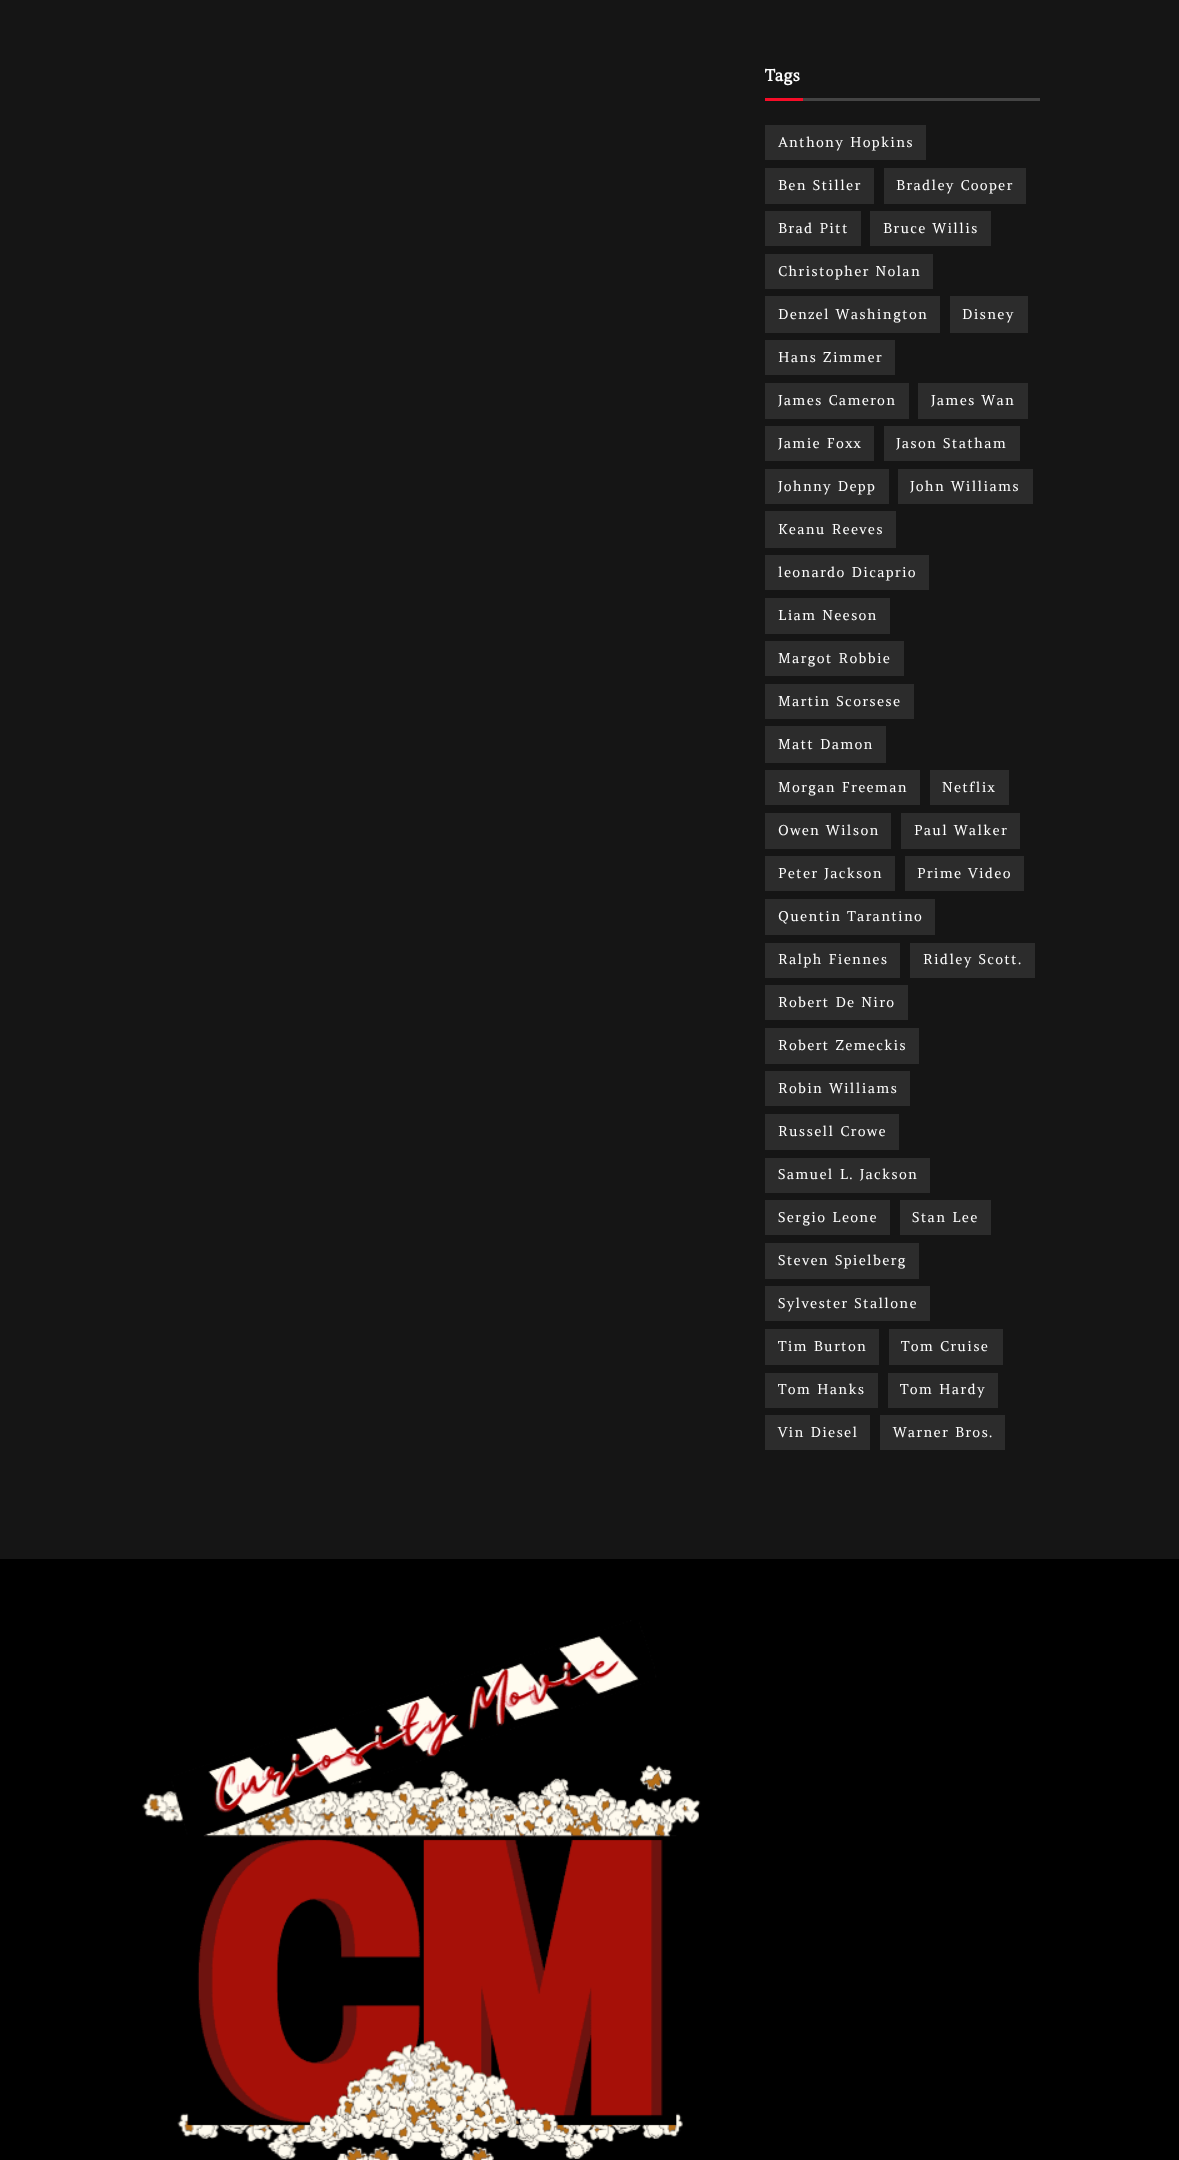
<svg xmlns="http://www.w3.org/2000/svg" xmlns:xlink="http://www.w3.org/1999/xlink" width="1179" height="2160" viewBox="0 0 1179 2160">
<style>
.cls-1{font:bold 16px Amethysta;fill:#ffffff}
.cls-2{font:13.75px Amethysta;letter-spacing:1.25px;fill:#ffffff}
</style>
<rect width="100%" height="100%" fill="#151515"/>
<rect fill="#444444" x="803" y="98" width="237" height="3"/>
<rect fill="#f70d28" x="765" y="98" width="38" height="3"/>
<rect fill="#2c2c2c" x="765" y="125" width="161" height="35"/>
<rect fill="#2c2c2c" x="765" y="168" width="109" height="36"/>
<rect fill="#2c2c2c" x="884" y="168" width="142" height="36"/>
<rect fill="#2c2c2c" x="765" y="211" width="96" height="35"/>
<rect fill="#2c2c2c" x="870" y="211" width="121" height="35"/>
<rect fill="#2c2c2c" x="765" y="254" width="168" height="35"/>
<rect fill="#2c2c2c" x="765" y="296" width="175" height="37"/>
<rect fill="#2c2c2c" x="950" y="296" width="78" height="37"/>
<rect fill="#2c2c2c" x="765" y="340" width="130" height="35"/>
<rect fill="#2c2c2c" x="765" y="383" width="144" height="36"/>
<rect fill="#2c2c2c" x="918" y="383" width="110" height="36"/>
<rect fill="#2c2c2c" x="765" y="426" width="109" height="35"/>
<rect fill="#2c2c2c" x="884" y="426" width="136" height="35"/>
<rect fill="#2c2c2c" x="765" y="469" width="124" height="35"/>
<rect fill="#2c2c2c" x="898" y="469" width="135" height="35"/>
<rect fill="#2c2c2c" x="765" y="511" width="131" height="37"/>
<rect fill="#2c2c2c" x="765" y="555" width="164" height="35"/>
<rect fill="#2c2c2c" x="765" y="598" width="125" height="36"/>
<rect fill="#2c2c2c" x="765" y="641" width="139" height="35"/>
<rect fill="#2c2c2c" x="765" y="684" width="149" height="35"/>
<rect fill="#2c2c2c" x="765" y="726" width="121" height="37"/>
<rect fill="#2c2c2c" x="765" y="770" width="155" height="35"/>
<rect fill="#2c2c2c" x="930" y="770" width="79" height="35"/>
<rect fill="#2c2c2c" x="765" y="813" width="126" height="36"/>
<rect fill="#2c2c2c" x="901" y="813" width="119" height="36"/>
<rect fill="#2c2c2c" x="765" y="856" width="130" height="35"/>
<rect fill="#2c2c2c" x="905" y="856" width="119" height="35"/>
<rect fill="#2c2c2c" x="765" y="899" width="170" height="36"/>
<rect fill="#2c2c2c" x="765" y="943" width="135" height="35"/>
<rect fill="#2c2c2c" x="910" y="943" width="125" height="35"/>
<rect fill="#2c2c2c" x="765" y="985" width="143" height="35"/>
<rect fill="#2c2c2c" x="765" y="1028" width="154" height="36"/>
<rect fill="#2c2c2c" x="765" y="1071" width="145" height="35"/>
<rect fill="#2c2c2c" x="765" y="1114" width="134" height="36"/>
<rect fill="#2c2c2c" x="765" y="1158" width="165" height="35"/>
<rect fill="#2c2c2c" x="765" y="1200" width="125" height="35"/>
<rect fill="#2c2c2c" x="900" y="1200" width="91" height="35"/>
<rect fill="#2c2c2c" x="765" y="1243" width="154" height="36"/>
<rect fill="#2c2c2c" x="765" y="1286" width="165" height="35"/>
<rect fill="#2c2c2c" x="765" y="1329" width="114" height="36"/>
<rect fill="#2c2c2c" x="889" y="1329" width="114" height="36"/>
<rect fill="#2c2c2c" x="765" y="1373" width="113" height="35"/>
<rect fill="#2c2c2c" x="888" y="1373" width="110" height="35"/>
<rect fill="#2c2c2c" x="765" y="1415" width="105" height="35"/>
<rect fill="#2c2c2c" x="880" y="1415" width="125" height="35"/>
<rect fill="#000000" x="0" y="1559" width="1179" height="601"/>
<image xlink:href="image0.png" x="142" y="1620" width="559" height="540"/>
<text class="cls-1" x="765" y="81">Tags</text>
<text class="cls-2" x="778" y="147">Anthony Hopkins</text>
<text class="cls-2" x="778" y="190">Ben Stiller</text>
<text class="cls-2" x="896" y="190">Bradley Cooper</text>
<text class="cls-2" x="778" y="233">Brad Pitt</text>
<text class="cls-2" x="883" y="233">Bruce Willis</text>
<text class="cls-2" x="778" y="276">Christopher Nolan</text>
<text class="cls-2" x="778" y="319">Denzel Washington</text>
<text class="cls-2" x="962" y="319">Disney</text>
<text class="cls-2" x="778" y="362">Hans Zimmer</text>
<text class="cls-2" x="778" y="405">James Cameron</text>
<text class="cls-2" x="931" y="405">James Wan</text>
<text class="cls-2" x="778" y="448">Jamie Foxx</text>
<text class="cls-2" x="896" y="448">Jason Statham</text>
<text class="cls-2" x="778" y="491">Johnny Depp</text>
<text class="cls-2" x="910" y="491">John Williams</text>
<text class="cls-2" x="778" y="534">Keanu Reeves</text>
<text class="cls-2" x="778" y="577">leonardo Dicaprio</text>
<text class="cls-2" x="778" y="620">Liam Neeson</text>
<text class="cls-2" x="778" y="663">Margot Robbie</text>
<text class="cls-2" x="778" y="706">Martin Scorsese</text>
<text class="cls-2" x="778" y="749">Matt Damon</text>
<text class="cls-2" x="778" y="792">Morgan Freeman</text>
<text class="cls-2" x="942" y="792">Netflix</text>
<text class="cls-2" x="778" y="835">Owen Wilson</text>
<text class="cls-2" x="914" y="835">Paul Walker</text>
<text class="cls-2" x="778" y="878">Peter Jackson</text>
<text class="cls-2" x="917" y="878">Prime Video</text>
<text class="cls-2" x="778" y="921">Quentin Tarantino</text>
<text class="cls-2" x="778" y="964">Ralph Fiennes</text>
<text class="cls-2" x="923" y="964">Ridley Scott.</text>
<text class="cls-2" x="778" y="1007">Robert De Niro</text>
<text class="cls-2" x="778" y="1050">Robert Zemeckis</text>
<text class="cls-2" x="778" y="1093">Robin Williams</text>
<text class="cls-2" x="778" y="1136">Russell Crowe</text>
<text class="cls-2" x="778" y="1179">Samuel L. Jackson</text>
<text class="cls-2" x="778" y="1222">Sergio Leone</text>
<text class="cls-2" x="912" y="1222">Stan Lee</text>
<text class="cls-2" x="778" y="1265">Steven Spielberg</text>
<text class="cls-2" x="778" y="1308">Sylvester Stallone</text>
<text class="cls-2" x="778" y="1351">Tim Burton</text>
<text class="cls-2" x="901" y="1351">Tom Cruise</text>
<text class="cls-2" x="778" y="1394">Tom Hanks</text>
<text class="cls-2" x="900" y="1394">Tom Hardy</text>
<text class="cls-2" x="778" y="1437">Vin Diesel</text>
<text class="cls-2" x="893" y="1437">Warner Bros.</text>
</svg>
